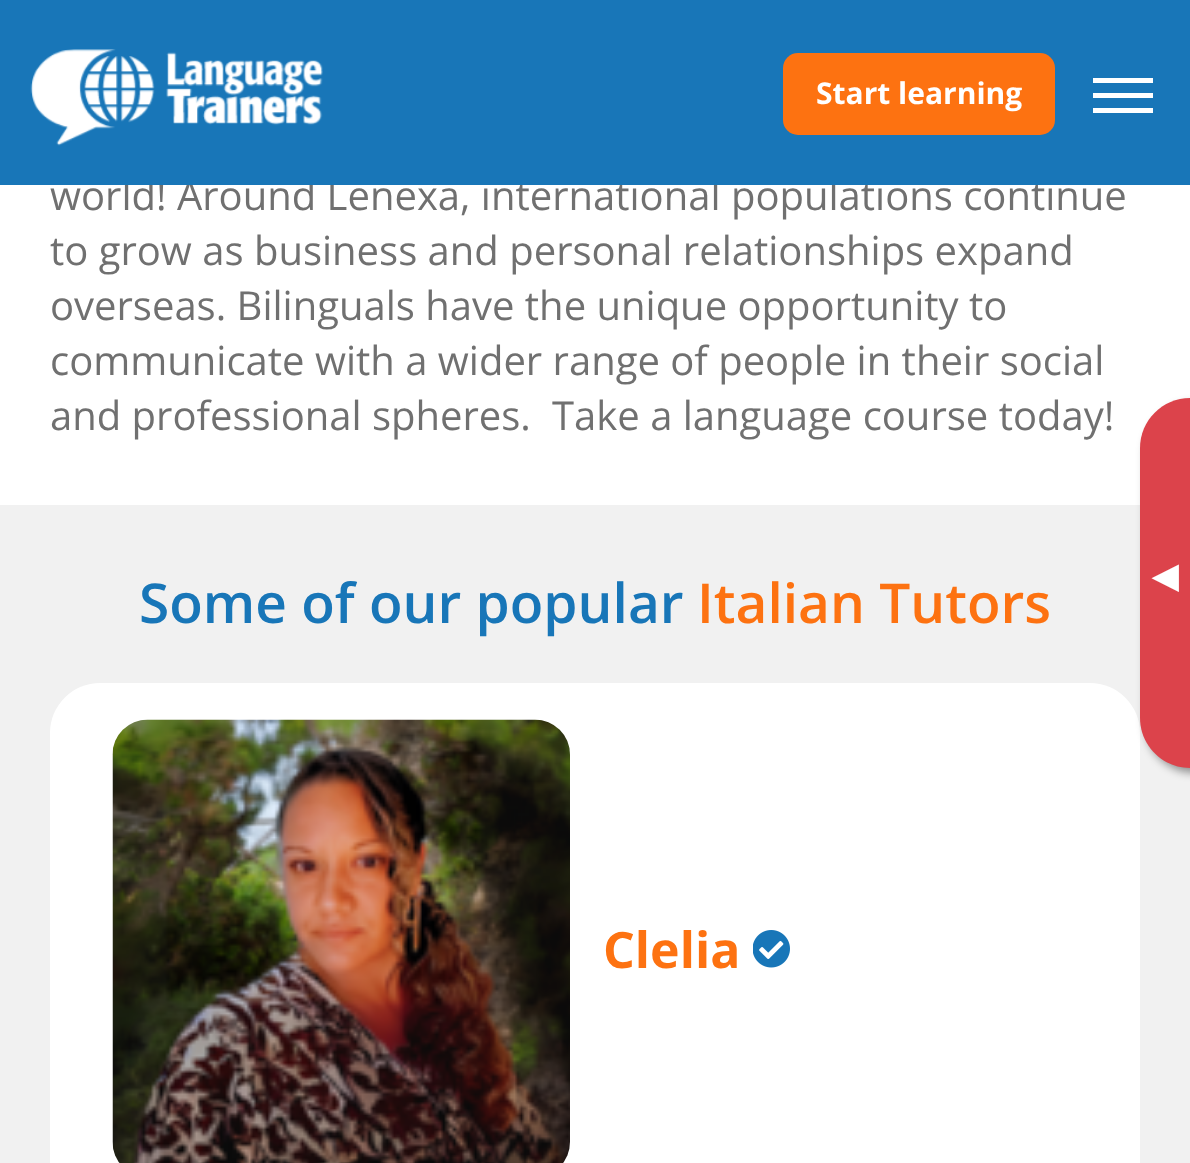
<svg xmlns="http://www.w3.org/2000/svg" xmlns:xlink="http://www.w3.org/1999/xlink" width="1190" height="1163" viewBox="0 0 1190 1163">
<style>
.cls-1{font:40px Open Sans;fill:#707070}
.cls-2{font:bold 30px Open Sans;fill:#ffffff}
.cls-3{font:600 55px Open Sans;fill:#1876b8}
.cls-4{font:600 55px Open Sans;fill:#fd7211}
.cls-5{font:bold 50px Open Sans;fill:#fd7211}
.cls-6{font:55px DejaVu Sans;fill:#ffffff}
</style>
<rect width="100%" height="100%" fill="#ffffff"/>
<rect fill="#f1f1f1" x="0" y="505" width="1190" height="658"/>
<rect fill="#ffffff" x="50" y="683" width="1090" height="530" rx="50"/>
<image xlink:href="image1.png" x="112" y="719" width="458" height="444"/>
<image xlink:href="image2.png" x="753" y="930" width="37" height="38"/>
<rect fill="#000000" fill-opacity="0.4" filter="blur(4px)" x="1145" y="403" width="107" height="370" rx="50"/>
<path fill="#dc434b" d="M1190 398H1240V768H1190C1162.5 768 1140 745.5 1140 718V448C1140 420.5 1162.5 398 1190 398Z"/>
<text class="cls-1" x="50" y="210">world! Around Lenexa, international populations continue</text>
<rect fill="#1876b8" x="0" y="0" width="1190" height="185"/>
<rect fill="#ffffff" x="1093" y="108" width="60" height="5"/>
<rect fill="#ffffff" x="1093" y="93" width="60" height="5"/>
<rect fill="#ffffff" x="1093" y="78" width="60" height="5"/>
<rect fill="#fd7211" x="783" y="53" width="272" height="82" rx="15"/>
<text class="cls-2" x="816" y="104">Start learning</text>
<image xlink:href="image0.png" x="30" y="49" width="293" height="97"/>
<text class="cls-1"><tspan x="50" y="265">to grow as business and personal relationships expand</tspan><tspan x="50" y="320">overseas. Bilinguals have the unique opportunity to</tspan><tspan x="50" y="375">communicate with a wider range of people in their social</tspan><tspan x="50" y="430">and professional spheres.</tspan></text>
<text class="cls-1" x="552" y="430">Take a language course today!</text>
<text class="cls-3" x="139" y="623">Some of our popular</text>
<text class="cls-4" x="697" y="623">Italian Tutors</text>
<text class="cls-5" x="603" y="968">Clelia</text>
<text class="cls-6" x="1179" y="564" transform="rotate(180 1179 564)">▸</text>
</svg>
